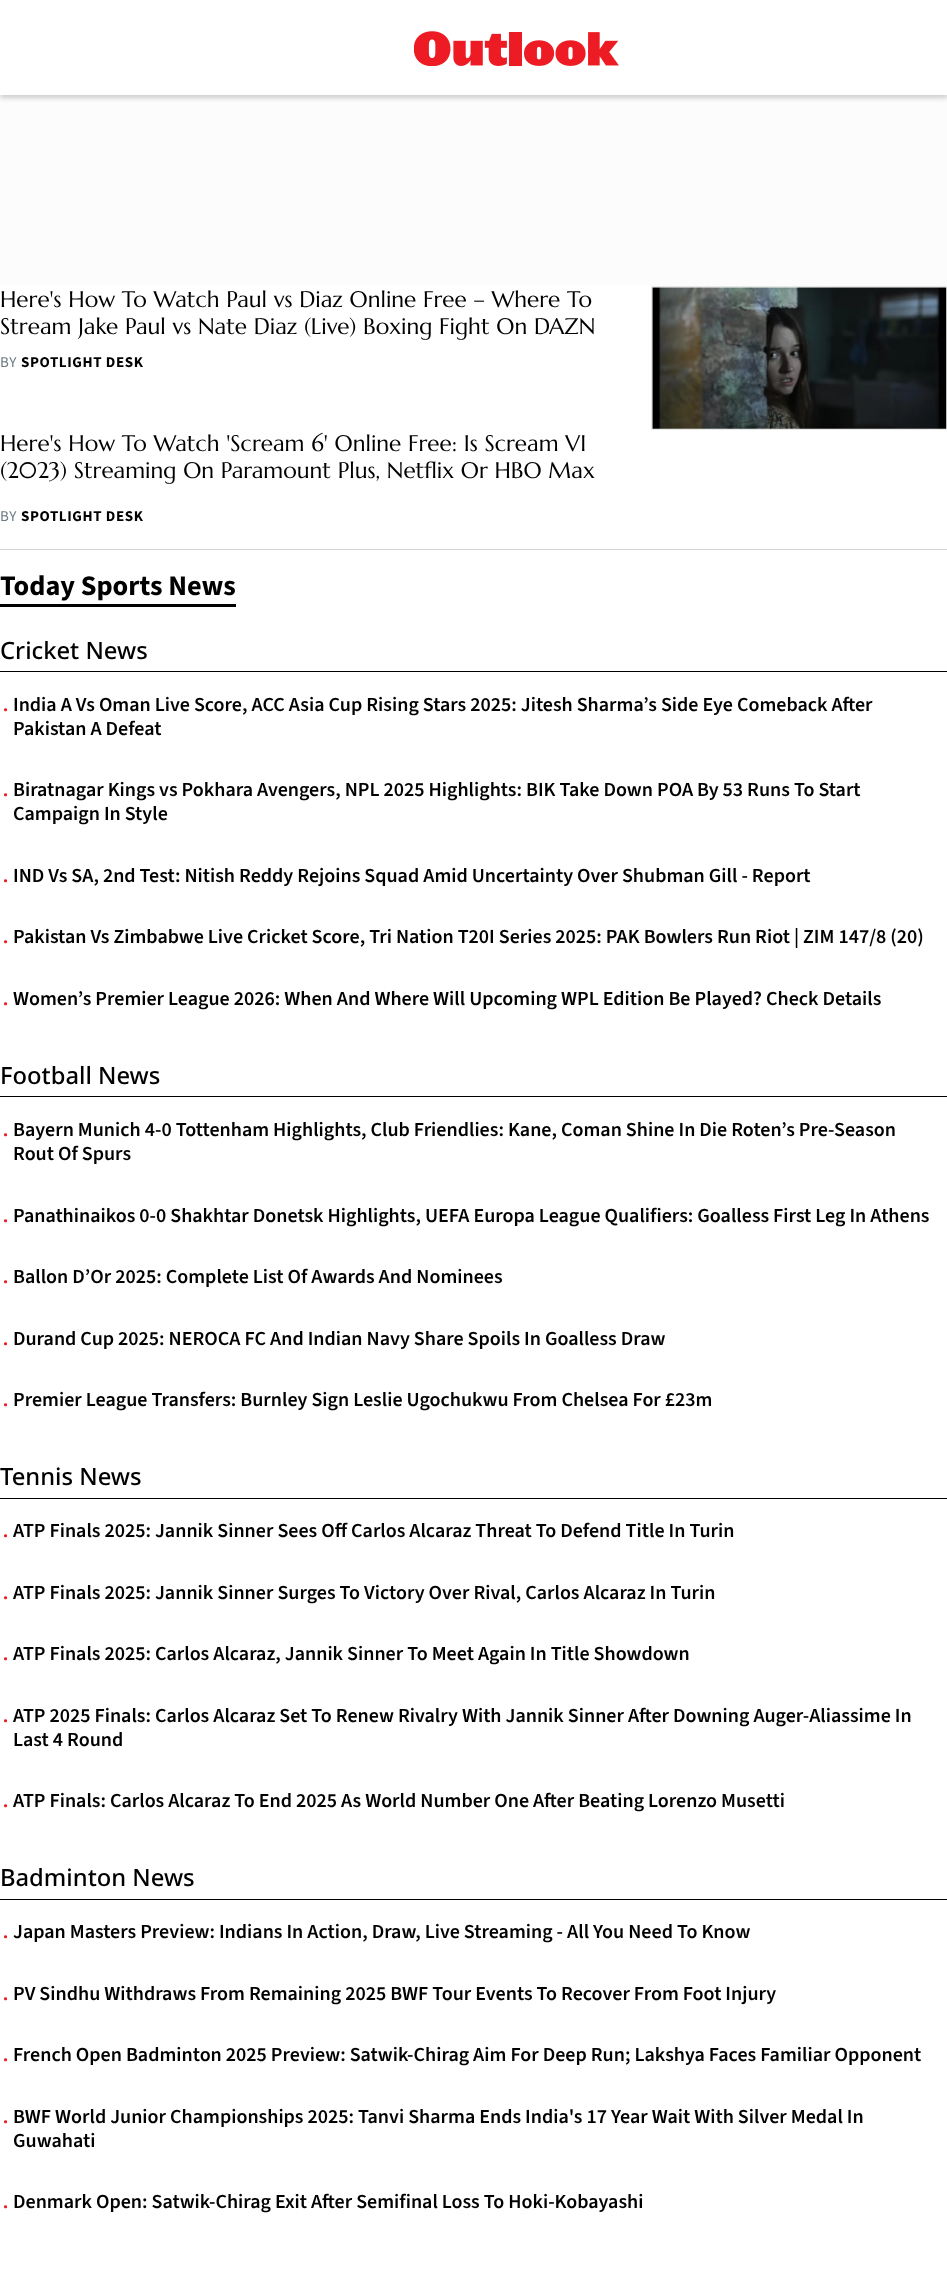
<svg xmlns="http://www.w3.org/2000/svg" xmlns:xlink="http://www.w3.org/1999/xlink" width="947" height="2282" viewBox="0 0 947 2282">
<style>
.cls-1{font:22.5px Marcellus;fill:#000000}
.cls-2{font:15px 'Source Sans 3';letter-spacing:0.6px;fill:#6b7b84}
.cls-3{font:bold 15px 'Source Sans 3';letter-spacing:0.6px;fill:#000000}
.cls-4{font:bold 28.25px 'Source Sans 3';fill:#000000}
.cls-5{font:500 23.75px Noto Sans;fill:#000000}
.cls-6{font:bold 18px Noto Sans;fill:#ed1c24}
.cls-7{font:600 20px 'Source Sans 3';fill:#000000}
</style>
<rect width="100%" height="100%" fill="#ffffff"/>
<rect fill="#fcfcfc" x="0" y="95" width="947" height="191"/>
<rect fill="#111111" fill-opacity="0.2" filter="blur(2.5px)" x="0" y="3" width="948" height="95"/>
<rect fill="#ffffff" x="0" y="0" width="947" height="95"/>
<image xlink:href="image0.png" x="414" y="31" width="205" height="35"/>
<rect fill="none" stroke="#e8e8e8" x="651.5" y="286.5" width="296" height="143"/>
<image xlink:href="image1.png" x="652" y="287" width="295" height="142"/>
<rect fill="#d5d5d5" x="0" y="549" width="947" height="1"/>
<rect fill="#000000" x="0" y="604" width="236" height="3"/>
<rect fill="#000000" x="0" y="671" width="947" height="1"/>
<rect fill="#000000" x="0" y="1096" width="947" height="1"/>
<rect fill="#000000" x="0" y="1498" width="947" height="1"/>
<rect fill="#000000" x="0" y="1899" width="947" height="1"/>
<text class="cls-1"><tspan x="0" y="307">Here's How To Watch Paul vs Diaz Online Free – Where To</tspan><tspan x="0" y="334">Stream Jake Paul vs Nate Diaz (Live) Boxing Fight On DAZN</tspan></text>
<text class="cls-2" x="0" y="367">BY</text>
<text class="cls-3" x="21" y="367">SPOTLIGHT DESK</text>
<text class="cls-1"><tspan x="0" y="451">Here's How To Watch 'Scream 6' Online Free: Is Scream VI</tspan><tspan x="0" y="478">(2023) Streaming On Paramount Plus, Netflix Or HBO Max</tspan></text>
<text class="cls-2" x="0" y="521">BY</text>
<text class="cls-3" x="21" y="521">SPOTLIGHT DESK</text>
<text class="cls-4" x="0" y="595">Today Sports News</text>
<text class="cls-5" x="0" y="659">Cricket News</text>
<text class="cls-6" x="3" y="711">.</text>
<text class="cls-7"><tspan x="13" y="711">India A Vs Oman Live Score, ACC Asia Cup Rising Stars 2025: Jitesh Sharma’s Side Eye Comeback After</tspan><tspan x="13" y="735">Pakistan A Defeat</tspan></text>
<text class="cls-6" x="3" y="796">.</text>
<text class="cls-7"><tspan x="13" y="796">Biratnagar Kings vs Pokhara Avengers, NPL 2025 Highlights: BIK Take Down POA By 53 Runs To Start</tspan><tspan x="13" y="820">Campaign In Style</tspan></text>
<text class="cls-6" x="3" y="882">.</text>
<text class="cls-7" x="13" y="882">IND Vs SA, 2nd Test: Nitish Reddy Rejoins Squad Amid Uncertainty Over Shubman Gill - Report</text>
<text class="cls-6" x="3" y="943">.</text>
<text class="cls-7" x="13" y="943">Pakistan Vs Zimbabwe Live Cricket Score, Tri Nation T20I Series 2025: PAK Bowlers Run Riot | ZIM 147/8 (20)</text>
<text class="cls-6" x="3" y="1005">.</text>
<text class="cls-7" x="13" y="1005">Women’s Premier League 2026: When And Where Will Upcoming WPL Edition Be Played? Check Details</text>
<text class="cls-5" x="0" y="1084">Football News</text>
<text class="cls-6" x="3" y="1136">.</text>
<text class="cls-7"><tspan x="13" y="1136">Bayern Munich 4-0 Tottenham Highlights, Club Friendlies: Kane, Coman Shine In Die Roten’s Pre-Season</tspan><tspan x="13" y="1160">Rout Of Spurs</tspan></text>
<text class="cls-6" x="3" y="1222">.</text>
<text class="cls-7" x="13" y="1222">Panathinaikos 0-0 Shakhtar Donetsk Highlights, UEFA Europa League Qualifiers: Goalless First Leg In Athens</text>
<text class="cls-6" x="3" y="1283">.</text>
<text class="cls-7" x="13" y="1283">Ballon D’Or 2025: Complete List Of Awards And Nominees</text>
<text class="cls-6" x="3" y="1345">.</text>
<text class="cls-7" x="13" y="1345">Durand Cup 2025: NEROCA FC And Indian Navy Share Spoils In Goalless Draw</text>
<text class="cls-6" x="3" y="1406">.</text>
<text class="cls-7" x="13" y="1406">Premier League Transfers: Burnley Sign Leslie Ugochukwu From Chelsea For £23m</text>
<text class="cls-5" x="0" y="1485">Tennis News</text>
<text class="cls-6" x="3" y="1537">.</text>
<text class="cls-7" x="13" y="1537">ATP Finals 2025: Jannik Sinner Sees Off Carlos Alcaraz Threat To Defend Title In Turin</text>
<text class="cls-6" x="3" y="1599">.</text>
<text class="cls-7" x="13" y="1599">ATP Finals 2025: Jannik Sinner Surges To Victory Over Rival, Carlos Alcaraz In Turin</text>
<text class="cls-6" x="3" y="1660">.</text>
<text class="cls-7" x="13" y="1660">ATP Finals 2025: Carlos Alcaraz, Jannik Sinner To Meet Again In Title Showdown</text>
<text class="cls-6" x="3" y="1722">.</text>
<text class="cls-7"><tspan x="13" y="1722">ATP 2025 Finals: Carlos Alcaraz Set To Renew Rivalry With Jannik Sinner After Downing Auger-Aliassime In</tspan><tspan x="13" y="1746">Last 4 Round</tspan></text>
<text class="cls-6" x="3" y="1807">.</text>
<text class="cls-7" x="13" y="1807">ATP Finals: Carlos Alcaraz To End 2025 As World Number One After Beating Lorenzo Musetti</text>
<text class="cls-5" x="0" y="1886">Badminton News</text>
<text class="cls-6" x="3" y="1938">.</text>
<text class="cls-7" x="13" y="1938">Japan Masters Preview: Indians In Action, Draw, Live Streaming - All You Need To Know</text>
<text class="cls-6" x="3" y="2000">.</text>
<text class="cls-7" x="13" y="2000">PV Sindhu Withdraws From Remaining 2025 BWF Tour Events To Recover From Foot Injury</text>
<text class="cls-6" x="3" y="2061">.</text>
<text class="cls-7" x="13" y="2061">French Open Badminton 2025 Preview: Satwik-Chirag Aim For Deep Run; Lakshya Faces Familiar Opponent</text>
<text class="cls-6" x="3" y="2123">.</text>
<text class="cls-7"><tspan x="13" y="2123">BWF World Junior Championships 2025: Tanvi Sharma Ends India's 17 Year Wait With Silver Medal In</tspan><tspan x="13" y="2147">Guwahati</tspan></text>
<text class="cls-6" x="3" y="2208">.</text>
<text class="cls-7" x="13" y="2208">Denmark Open: Satwik-Chirag Exit After Semifinal Loss To Hoki-Kobayashi</text>
</svg>
